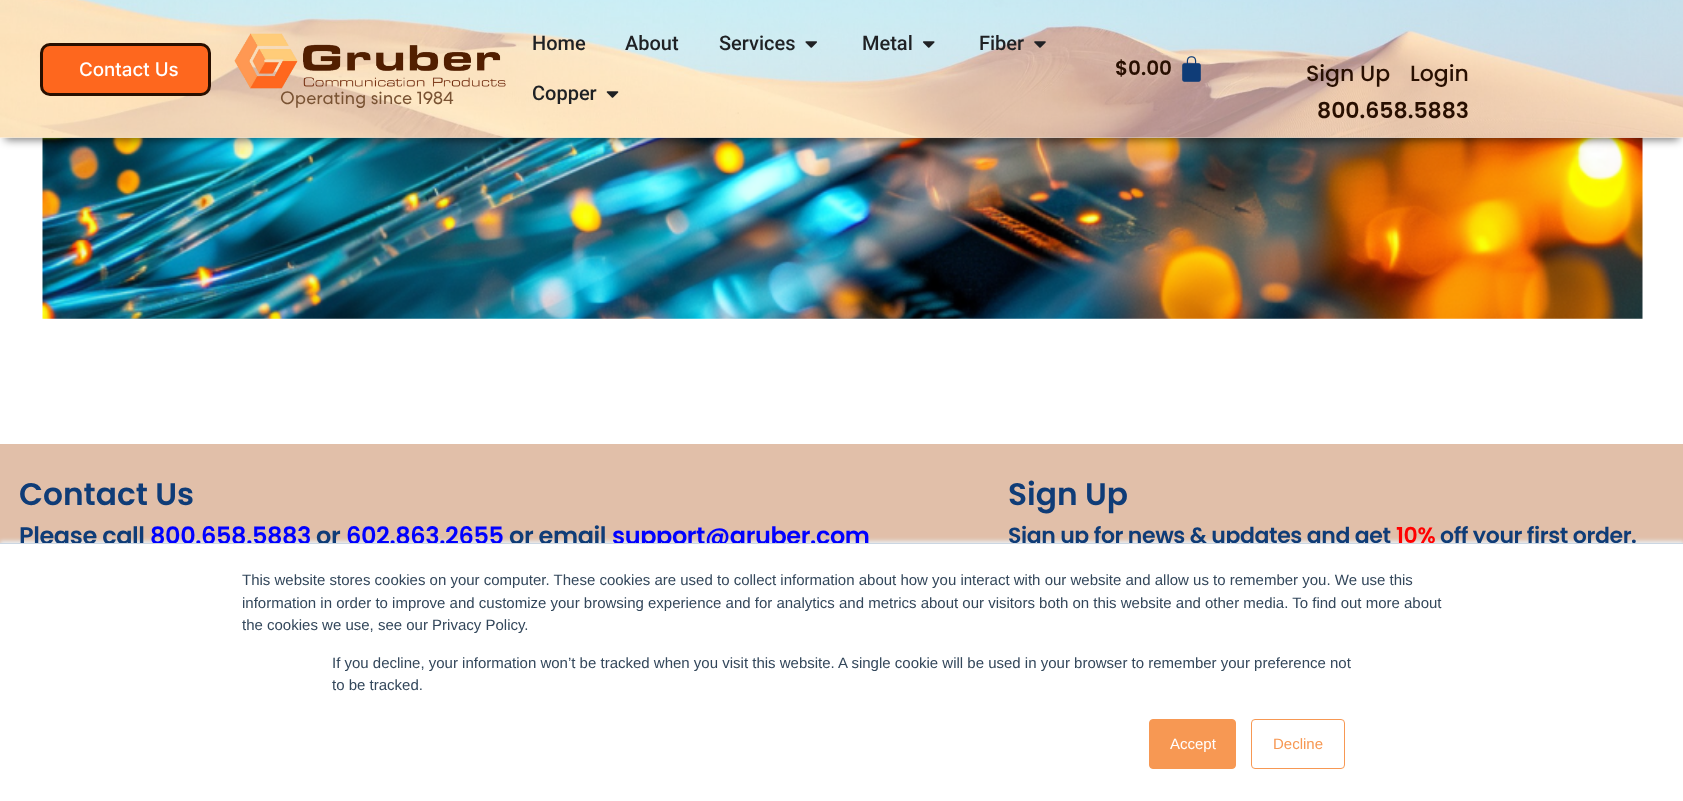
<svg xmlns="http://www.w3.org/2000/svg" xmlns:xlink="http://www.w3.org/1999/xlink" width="1683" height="801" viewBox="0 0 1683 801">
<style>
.cls-1{font:500 18.75px Inter;fill:#ffffff}
.cls-2{font:18px 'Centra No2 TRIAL';fill:#795333}
.cls-3{font:500 20px Roboto;fill:#1f2124}
.cls-4{font:600 20px Poppins;fill:#280f00}
.cls-5{font:500 22px Poppins;fill:#280f00}
.cls-6{font:600 22px Poppins;fill:#280f00}
.cls-7{font:600 31.25px Poppins;fill:#0f3c77}
.cls-8{font:600 24px Poppins;letter-spacing:-0.4px;fill:#0f3c77}
.cls-9{font:600 24px Poppins;letter-spacing:-0.4px;fill:#0000ff}
.cls-10{font:600 22px Poppins;letter-spacing:-0.4px;fill:#0f3c77}
.cls-11{font:600 22px Poppins;letter-spacing:-0.4px;fill:#ff0000}
.cls-12{font:15px Liberation Sans;fill:#33475b}
.cls-13{font:15px Liberation Sans;fill:#ffffff}
.cls-14{font:15px Liberation Sans;fill:#f79853}
</style>
<rect width="100%" height="100%" fill="#ffffff"/>
<image xlink:href="image7.png" x="42" y="137" width="1601" height="182"/>
<rect fill="#000000" fill-opacity="0.51" filter="blur(4px)" x="5" y="13" width="1674" height="127"/>
<rect fill="#ffffff" fill-opacity="0.5" x="0" y="137" width="1683" height="1"/>
<image xlink:href="image0.png" x="0" y="0" width="1683" height="138"/>
<rect fill="#ffffff" fill-opacity="0.5" x="0" y="0" width="1683" height="138"/>
<rect fill="#fe671e" stroke="#280f00" stroke-width="3" x="41.5" y="44.5" width="168" height="50" rx="8.5"/>
<image xlink:href="image1.png" x="234" y="33" width="272" height="56"/>
<image xlink:href="image2.png" x="805" y="41" width="12" height="7"/>
<image xlink:href="image3.png" x="923" y="41" width="12" height="7"/>
<image xlink:href="image4.png" x="1034" y="41" width="12" height="7"/>
<image xlink:href="image5.png" x="606" y="91" width="13" height="7"/>
<image xlink:href="image6.png" x="1182" y="56" width="19" height="26"/>
<rect fill="#e1bfa9" x="0" y="444" width="1683" height="99"/>
<rect fill="#eaf0f6" filter="blur(2px)" x="0" y="541" width="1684" height="259"/>
<text class="cls-1" x="79" y="76">Contact Us</text>
<text class="cls-2" x="280" y="104">Operating since 1984</text>
<text class="cls-3" x="532" y="50">Home</text>
<text class="cls-3" x="625" y="50">About</text>
<text class="cls-3" x="719" y="50">Services</text>
<text class="cls-3" x="862" y="50">Metal</text>
<text class="cls-3" x="979" y="50">Fiber</text>
<text class="cls-3" x="532" y="100">Copper</text>
<text class="cls-4" x="1115" y="75">$0.00</text>
<text class="cls-5" x="1306" y="81">Sign Up</text>
<text class="cls-5" x="1410" y="81">Login</text>
<text class="cls-6" x="1317" y="118">800.658.5883</text>
<text class="cls-7" x="19" y="505">Contact Us</text>
<text class="cls-8" x="19" y="544">Please call</text>
<text class="cls-9" x="150" y="544">800.658.5883</text>
<text class="cls-8" x="316" y="544">or</text>
<text class="cls-9" x="346" y="544">602.863.2655</text>
<text class="cls-8" x="509" y="544">or email</text>
<text class="cls-9" x="612" y="544">support@gruber.com</text>
<text class="cls-7" x="1008" y="505">Sign Up</text>
<text class="cls-10" x="1008" y="543">Sign up for news &amp; updates and get</text>
<text class="cls-11" x="1396" y="543">10%</text>
<text class="cls-10" x="1440" y="543">off your first order.</text>
<rect fill="#ffffff" x="0" y="544" width="1683" height="257"/>
<rect fill="#cbd6e2" x="0" y="543" width="1683" height="1"/>
<text class="cls-12"><tspan x="242" y="585">This website stores cookies on your computer. These cookies are used to collect information about how you interact with our website and allow us to remember you. We use this</tspan><tspan x="242" y="608">information in order to improve and customize your browsing experience and for analytics and metrics about our visitors both on this website and other media. To find out more about</tspan><tspan x="242" y="630">the cookies we use, see our Privacy Policy.</tspan></text>
<text class="cls-12"><tspan x="332" y="668">If you decline, your information won’t be tracked when you visit this website. A single cookie will be used in your browser to remember your preference not</tspan><tspan x="332" y="690">to be tracked.</tspan></text>
<rect fill="#f79853" stroke="#f79853" x="1149.5" y="719.5" width="86" height="49" rx="3.5"/>
<text class="cls-13" x="1170" y="749">Accept</text>
<rect fill="none" stroke="#f79853" x="1251.5" y="719.5" width="93" height="49" rx="3.5"/>
<text class="cls-14" x="1273" y="749">Decline</text>
</svg>
